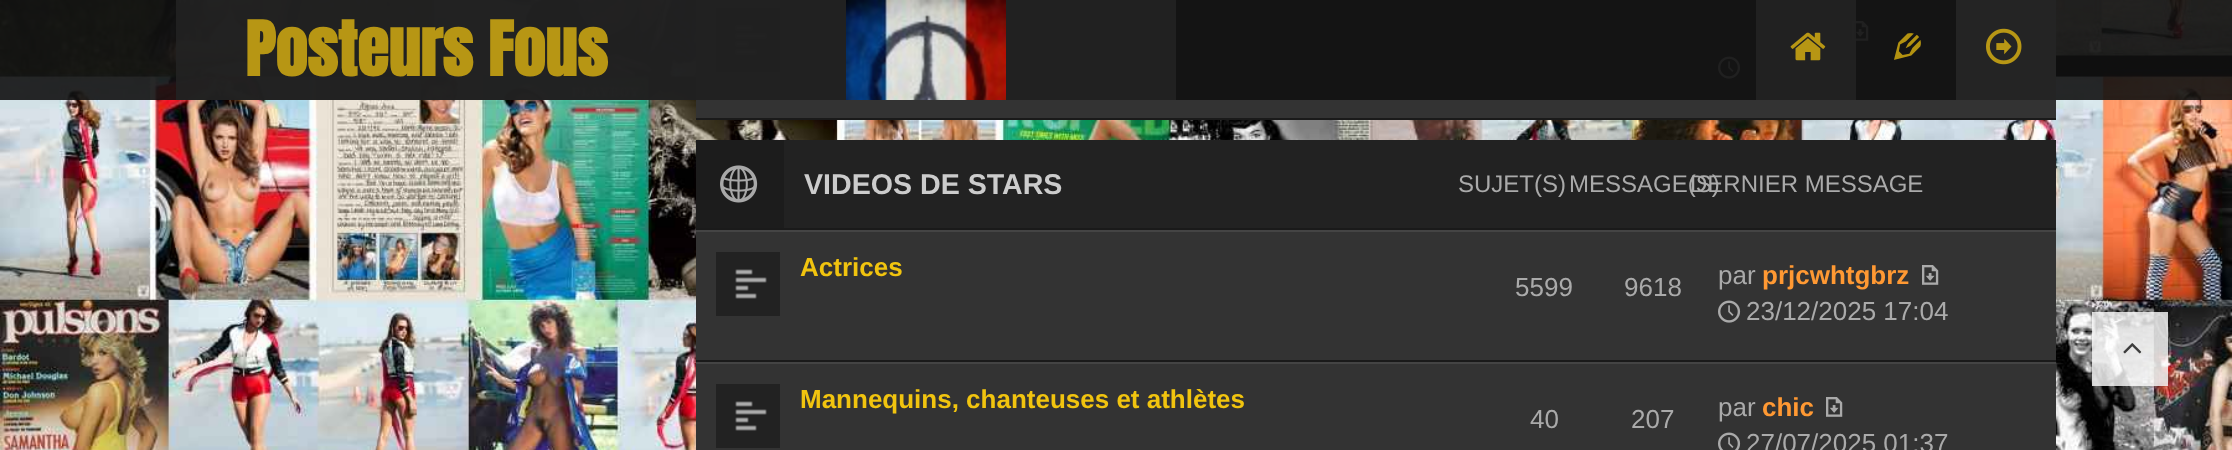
<svg xmlns="http://www.w3.org/2000/svg" xmlns:xlink="http://www.w3.org/1999/xlink" width="2232" height="450" viewBox="0 0 2232 450">
<style>
.cls-1{font:bold 64px Anton;fill:#b79614}
.cls-2{font:bold 28.6px Liberation Sans;fill:#cccccc}
.cls-3{font:24px Liberation Sans;fill:#aaaaaa}
.cls-4{font:bold 26px Liberation Sans;fill:#f1c40f}
.cls-5{font:26px Liberation Sans;fill:#aaaaaa}
.cls-6{font:bold 26px Liberation Sans;fill:#ff9933}
</style>
<rect width="100%" height="100%" fill="#ffffff"/>
<image xlink:href="image4.png" x="0" y="0" width="2232" height="450"/>
<rect fill="#333333" x="696" y="0" width="1360" height="118"/>
<image xlink:href="image5.png" x="716" y="8" width="64" height="64"/>
<image xlink:href="image6.png" x="1852" y="21" width="17" height="20"/>
<image xlink:href="image7.png" x="1718" y="56" width="23" height="23"/>
<rect fill="#111111" fill-opacity="0.9" x="0" y="0" width="2232" height="100"/>
<rect fill="#222222" fill-opacity="0.9" x="176" y="0" width="500" height="100"/>
<rect fill="#222222" fill-opacity="0.9" x="676" y="0" width="500" height="100"/>
<image xlink:href="image0.png" x="846" y="0" width="160" height="100"/>
<rect fill="#222222" fill-opacity="0.9" x="1756" y="0" width="100" height="100"/>
<image xlink:href="image1.png" x="1790" y="32" width="36" height="29"/>
<image xlink:href="image2.png" x="1894" y="33" width="27" height="27"/>
<rect fill="#242424" x="1956" y="0" width="100" height="100"/>
<image xlink:href="image3.png" x="1986" y="28" width="36" height="37"/>
<rect fill="#1a1a1a" x="696" y="118" width="1360" height="2"/>
<rect fill="#222222" x="784" y="140" width="1272" height="88"/>
<rect fill="#1a1a1a" x="696" y="228" width="1360" height="2"/>
<rect fill="#1c1c1c" x="696" y="140" width="88" height="88"/>
<image xlink:href="image8.png" x="720" y="165" width="38" height="38"/>
<rect fill="#333333" x="696" y="232" width="1360" height="218"/>
<rect fill="#444444" x="696" y="230" width="1360" height="2"/>
<rect fill="#1a1a1a" x="696" y="360" width="1360" height="2"/>
<image xlink:href="image5.png" x="716" y="252" width="64" height="64"/>
<image xlink:href="image6.png" x="1922" y="265" width="17" height="20"/>
<image xlink:href="image7.png" x="1718" y="300" width="23" height="23"/>
<rect fill="#444444" x="696" y="362" width="1360" height="2"/>
<image xlink:href="image5.png" x="716" y="384" width="64" height="64"/>
<image xlink:href="image6.png" x="1826" y="397" width="17" height="20"/>
<image xlink:href="image9.png" x="1718" y="432" width="23" height="18"/>
<rect fill="#ffffff" fill-opacity="0.8" x="2092" y="312" width="76" height="74"/>
<image xlink:href="image10.png" x="2123" y="343" width="19" height="11"/>
<text class="cls-1" x="245" y="76">Posteurs Fous</text>
<text class="cls-2" x="804" y="194">VIDEOS DE STARS</text>
<text class="cls-3" x="1458" y="192">SUJET(S)</text>
<text class="cls-3" x="1569" y="192">MESSAGE(S)</text>
<text class="cls-3" x="1690" y="192">DERNIER MESSAGE</text>
<text class="cls-4" x="800" y="276">Actrices</text>
<text class="cls-5" x="1515" y="296">5599</text>
<text class="cls-5" x="1624" y="296">9618</text>
<text class="cls-5" x="1718" y="284">par</text>
<text class="cls-6" x="1762" y="284">prjcwhtgbrz</text>
<text class="cls-5" x="1746" y="320">23/12/2025 17:04</text>
<text class="cls-4" x="800" y="408">Mannequins, chanteuses et athlètes</text>
<text class="cls-5" x="1530" y="428">40</text>
<text class="cls-5" x="1631" y="428">207</text>
<text class="cls-5" x="1718" y="416">par</text>
<text class="cls-6" x="1762" y="416">chic</text>
<text class="cls-5" x="1746" y="452">27/07/2025 01:37</text>
</svg>
